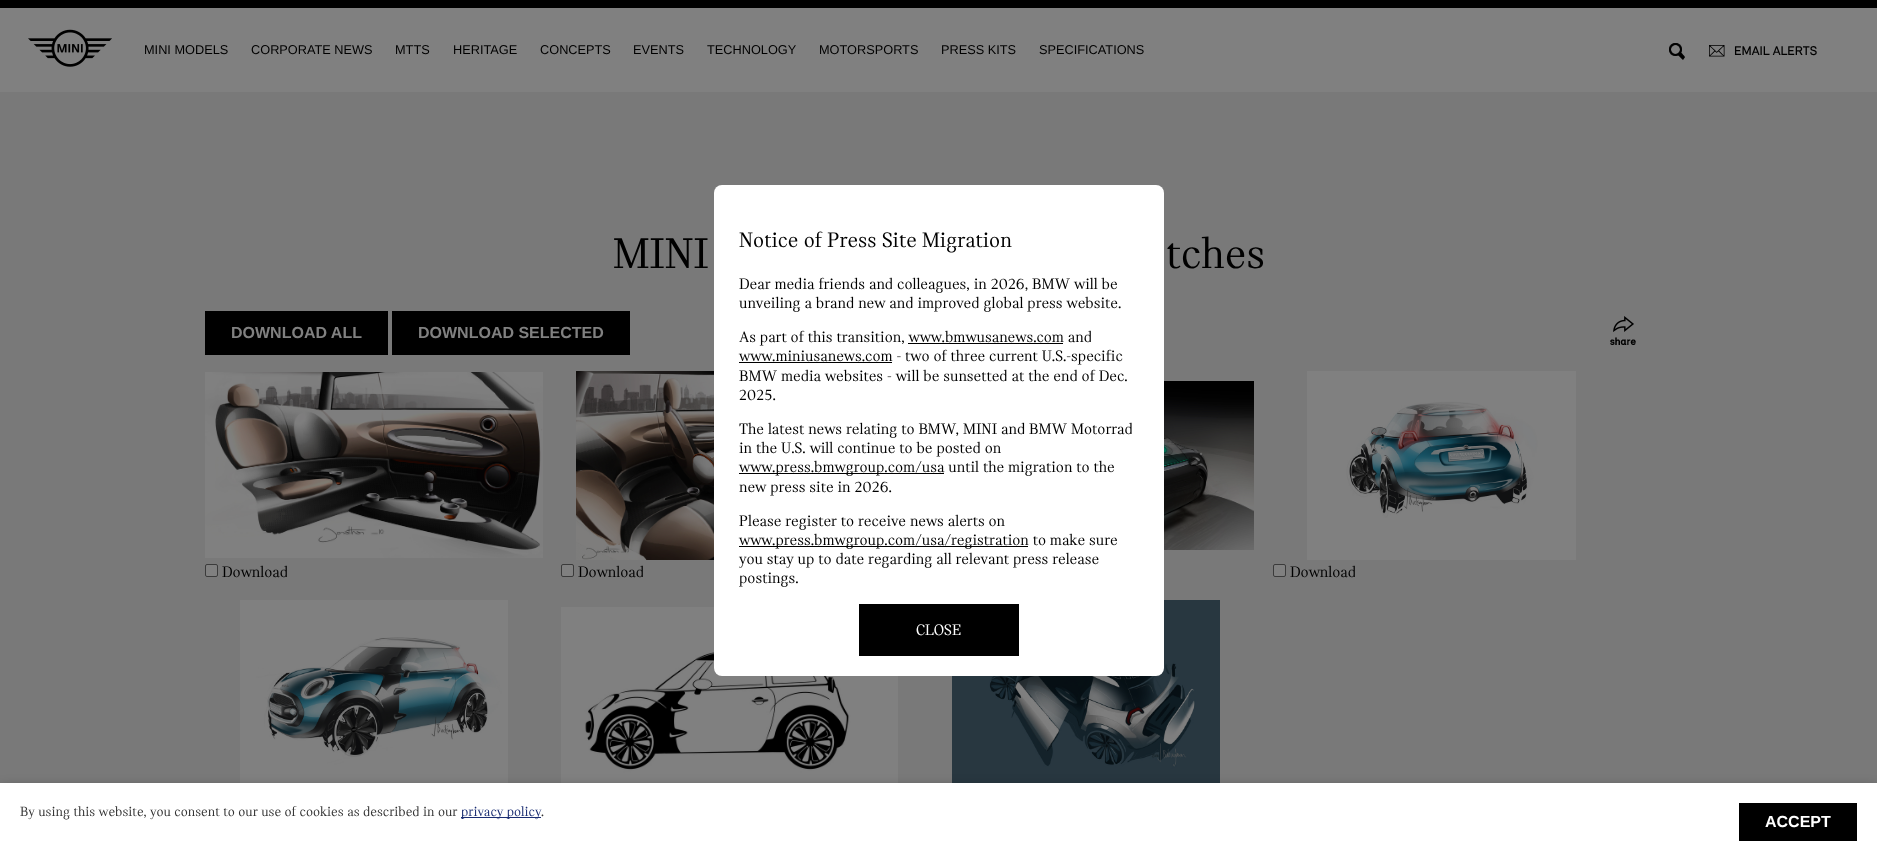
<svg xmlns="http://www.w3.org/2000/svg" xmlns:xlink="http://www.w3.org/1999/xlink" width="1877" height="861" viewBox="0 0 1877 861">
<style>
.cls-1{font:12.75px Liberation Sans;fill:#000000}
.cls-2{font:13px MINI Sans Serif;fill:#000000}
.cls-3{font:22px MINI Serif;fill:#000000}
.cls-4{font:16px MINI Serif;fill:#000000}
.cls-5{font:16px MINI Serif;fill:#ffffff}
.cls-6{font:45px MINI Serif;fill:#000000}
.cls-7{font:bold 16px Liberation Sans;fill:#808080}
.cls-8{font:14px MINI Serif;fill:#333333}
.cls-9{font:14px MINI Serif;fill:#1b2e73}
.cls-10{font:bold 16px Liberation Sans;fill:#ffffff}
</style>
<rect width="100%" height="100%" fill="#808080"/>
<rect fill="#000000" x="0" y="0" width="1877" height="8"/>
<image xlink:href="image0.png" x="28" y="29" width="84" height="38"/>
<image xlink:href="image1.png" x="1669" y="43" width="16" height="17"/>
<image xlink:href="image2.png" x="1709" y="45" width="16" height="12"/>
<rect fill="#797979" x="0" y="92" width="1877" height="691"/>
<image xlink:href="image9.png" x="561" y="607" width="337" height="176"/>
<image xlink:href="image10.png" x="952" y="600" width="268" height="183"/>
<rect fill="#ffffff" x="714" y="185" width="450" height="491" rx="8"/>
<rect fill="#000000" x="908" y="343" width="155" height="1"/>
<rect fill="#000000" x="739" y="362" width="153" height="1"/>
<rect fill="#000000" x="739" y="473" width="205" height="1"/>
<rect fill="#000000" x="739" y="546" width="289" height="1"/>
<rect fill="#000000" x="859" y="604" width="160" height="52"/>
<rect fill="#000000" x="205" y="311" width="183" height="44"/>
<rect fill="#000000" x="392" y="311" width="238" height="44"/>
<image xlink:href="image3.png" x="1610" y="316" width="26" height="29"/>
<image xlink:href="image4.png" x="1164" y="381" width="90" height="169"/>
<image xlink:href="image5.png" x="205" y="372" width="338" height="186"/>
<rect fill="#808080" stroke="#3b3b3b" x="205.5" y="564.5" width="12" height="12" rx="1.5"/>
<image xlink:href="image6.png" x="576" y="371" width="138" height="189"/>
<rect fill="#808080" stroke="#3b3b3b" x="561.5" y="564.5" width="12" height="12" rx="1.5"/>
<image xlink:href="image7.png" x="1307" y="371" width="269" height="189"/>
<rect fill="#808080" stroke="#3b3b3b" x="1273.5" y="564.5" width="12" height="12" rx="1.5"/>
<image xlink:href="image8.png" x="240" y="600" width="268" height="183"/>
<rect fill="#000000" fill-opacity="0.3" filter="blur(6px)" x="0" y="787" width="1877" height="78"/>
<rect fill="#ffffff" x="0" y="783" width="1877" height="78"/>
<rect fill="#1b2e73" x="461" y="817" width="80" height="1"/>
<rect fill="#000000" x="1739" y="803" width="118" height="38"/>
<text class="cls-1" x="144" y="54">MINI MODELS</text>
<text class="cls-1" x="251" y="54">CORPORATE NEWS</text>
<text class="cls-1" x="395" y="54">MTTS</text>
<text class="cls-1" x="453" y="54">HERITAGE</text>
<text class="cls-1" x="540" y="54">CONCEPTS</text>
<text class="cls-1" x="633" y="54">EVENTS</text>
<text class="cls-1" x="707" y="54">TECHNOLOGY</text>
<text class="cls-1" x="819" y="54">MOTORSPORTS</text>
<text class="cls-1" x="941" y="54">PRESS KITS</text>
<text class="cls-1" x="1039" y="54">SPECIFICATIONS</text>
<text class="cls-2" x="1734" y="55">EMAIL ALERTS</text>
<text class="cls-3" x="739" y="247">Notice of Press Site Migration</text>
<text class="cls-4"><tspan x="739" y="289">Dear media friends and colleagues, in 2026, BMW will be</tspan><tspan x="739" y="308">unveiling a brand new and improved global press website.</tspan></text>
<text class="cls-4"><tspan x="739" y="342">As part of this transition, www.bmwusanews.com and</tspan><tspan x="739" y="361">www.miniusanews.com - two of three current U.S.-specific</tspan><tspan x="739" y="381">BMW media websites - will be sunsetted at the end of Dec.</tspan><tspan x="739" y="400">2025.</tspan></text>
<text class="cls-4"><tspan x="739" y="434">The latest news relating to BMW, MINI and BMW Motorrad</tspan><tspan x="739" y="453">in the U.S. will continue to be posted on</tspan><tspan x="739" y="472">www.press.bmwgroup.com/usa until the migration to the</tspan><tspan x="739" y="492">new press site in 2026.</tspan></text>
<text class="cls-4"><tspan x="739" y="526">Please register to receive news alerts on</tspan><tspan x="739" y="545">www.press.bmwgroup.com/usa/registration to make sure</tspan><tspan x="739" y="564">you stay up to date regarding all relevant press release</tspan><tspan x="739" y="583">postings.</tspan></text>
<text class="cls-5" x="916" y="635">CLOSE</text>
<text class="cls-6" x="613" y="268">MINI</text>
<text class="cls-6" x="1166" y="268">tches</text>
<text class="cls-7" x="231" y="338">DOWNLOAD ALL</text>
<text class="cls-7" x="418" y="338">DOWNLOAD SELECTED</text>
<text class="cls-4" x="222" y="577">Download</text>
<text class="cls-4" x="578" y="577">Download</text>
<text class="cls-4" x="1290" y="577">Download</text>
<text class="cls-8" x="20" y="816">By using this website, you consent to our use of cookies as described in our</text>
<text class="cls-9" x="461" y="816">privacy policy</text>
<text class="cls-8" x="541" y="816">.</text>
<text class="cls-10" x="1765" y="827">ACCEPT</text>
</svg>
